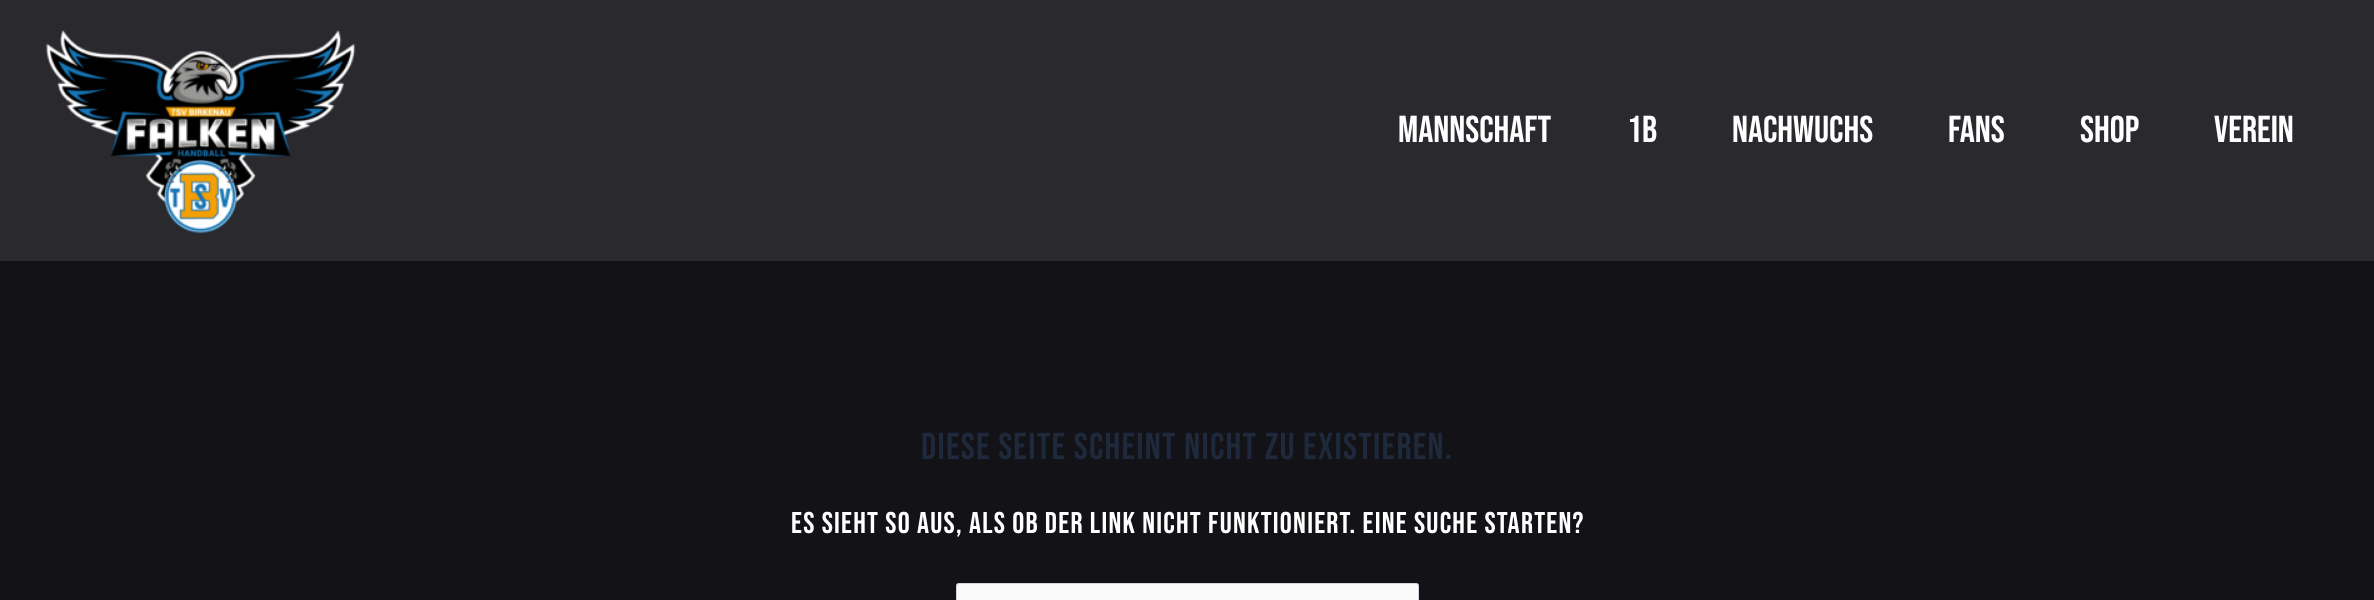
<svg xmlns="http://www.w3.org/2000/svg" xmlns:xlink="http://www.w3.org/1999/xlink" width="2374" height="600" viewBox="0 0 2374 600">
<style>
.cls-1{font:37.5px Bebas Neue;fill:#ffffff}
.cls-2{font:37.5px Bebas Neue;letter-spacing:1.25px;fill:#1e293b}
.cls-3{font:30px Bebas Neue;letter-spacing:1.25px;fill:#ffffff}
</style>
<rect width="100%" height="100%" fill="#121217"/>
<rect fill="#29292e" x="0" y="0" width="2374" height="261"/>
<image xlink:href="image0.png" x="46" y="30" width="310" height="204"/>
<rect fill="#fafafa" stroke="#d1d5db" x="956.5" y="583.5" width="462" height="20" rx="2"/>
<text class="cls-1" x="1398" y="142">MANNSCHAFT</text>
<text class="cls-1" x="1627" y="142">1B</text>
<text class="cls-1" x="1732" y="142">NACHWUCHS</text>
<text class="cls-1" x="1948" y="142">FANS</text>
<text class="cls-1" x="2080" y="142">SHOP</text>
<text class="cls-1" x="2214" y="142">VEREIN</text>
<text class="cls-2" x="921" y="459">DIESE SEITE SCHEINT NICHT ZU EXISTIEREN.</text>
<text class="cls-3" x="791" y="533">ES SIEHT SO AUS, ALS OB DER LINK NICHT FUNKTIONIERT. EINE SUCHE STARTEN?</text>
</svg>
